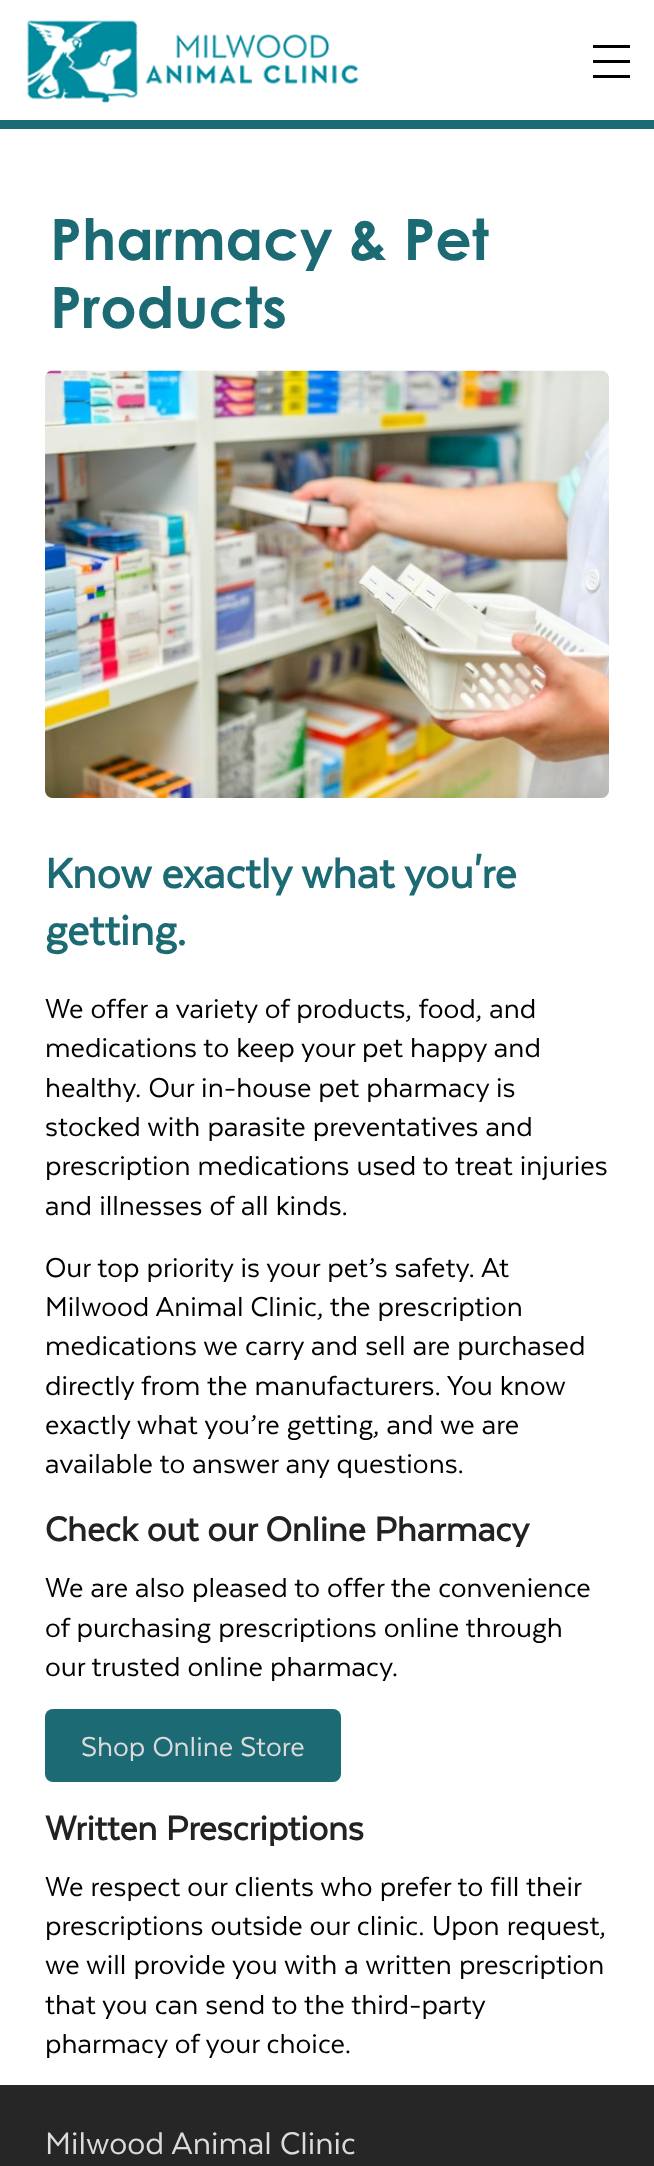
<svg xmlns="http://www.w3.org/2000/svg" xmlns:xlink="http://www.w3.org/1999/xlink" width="654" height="2166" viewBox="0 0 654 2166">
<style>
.cls-1{font:bold 57px Century Gothic;fill:#1c6a73}
.cls-2{font:bold 48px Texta;fill:#1c6a73}
.cls-3{font:31.5px Texta;fill:#000000}
.cls-4{font:bold 39px Texta;fill:#222222}
.cls-5{font:31.5px Texta;fill:#dbdbdb}
.cls-6{font:36px Texta;fill:#dbdbdb}
</style>
<rect width="100%" height="100%" fill="#ffffff"/>
<rect fill="#1c6a73" x="0" y="120" width="654" height="9"/>
<image xlink:href="image0.png" x="27" y="20" width="332" height="83"/>
<rect fill="#000000" x="593" y="60" width="37" height="3"/>
<rect fill="#000000" x="593" y="45" width="37" height="3"/>
<rect fill="#000000" x="593" y="75" width="37" height="3"/>
<image xlink:href="image1.png" x="45" y="370" width="564" height="428"/>
<rect fill="#1c6a73" x="45" y="1709" width="296" height="73" rx="8"/>
<rect fill="#262626" x="0" y="2085" width="654" height="81"/>
<text class="cls-1"><tspan x="50" y="260">Pharmacy &amp; Pet</tspan><tspan x="50" y="328">Products</tspan></text>
<text class="cls-2"><tspan x="45" y="888">Know exactly what you're</tspan><tspan x="45" y="945">getting.</tspan></text>
<text class="cls-3"><tspan x="45" y="1018">We offer a variety of products, food, and</tspan><tspan x="45" y="1057">medications to keep your pet happy and</tspan><tspan x="45" y="1097">healthy. Our in-house pet pharmacy is</tspan><tspan x="45" y="1136">stocked with parasite preventatives and</tspan><tspan x="45" y="1175">prescription medications used to treat injuries</tspan><tspan x="45" y="1215">and illnesses of all kinds.</tspan><tspan x="45" y="1277">Our top priority is your pet’s safety. At</tspan><tspan x="45" y="1316">Milwood Animal Clinic, the prescription</tspan><tspan x="45" y="1355">medications we carry and sell are purchased</tspan><tspan x="45" y="1395">directly from the manufacturers. You know</tspan><tspan x="45" y="1434">exactly what you’re getting, and we are</tspan><tspan x="45" y="1473">available to answer any questions.</tspan></text>
<text class="cls-4" x="45" y="1541">Check out our Online Pharmacy</text>
<text class="cls-3"><tspan x="45" y="1597">We are also pleased to offer the convenience</tspan><tspan x="45" y="1637">of purchasing prescriptions online through</tspan><tspan x="45" y="1676">our trusted online pharmacy.</tspan></text>
<text class="cls-5" x="81" y="1756">Shop Online Store</text>
<text class="cls-4" x="45" y="1840">Written Prescriptions</text>
<text class="cls-3"><tspan x="45" y="1896">We respect our clients who prefer to fill their</tspan><tspan x="45" y="1935">prescriptions outside our clinic. Upon request,</tspan><tspan x="45" y="1974">we will provide you with a written prescription</tspan><tspan x="45" y="2014">that you can send to the third-party</tspan><tspan x="45" y="2053">pharmacy of your choice.</tspan></text>
<text class="cls-6" x="45" y="2154">Milwood Animal Clinic</text>
</svg>
